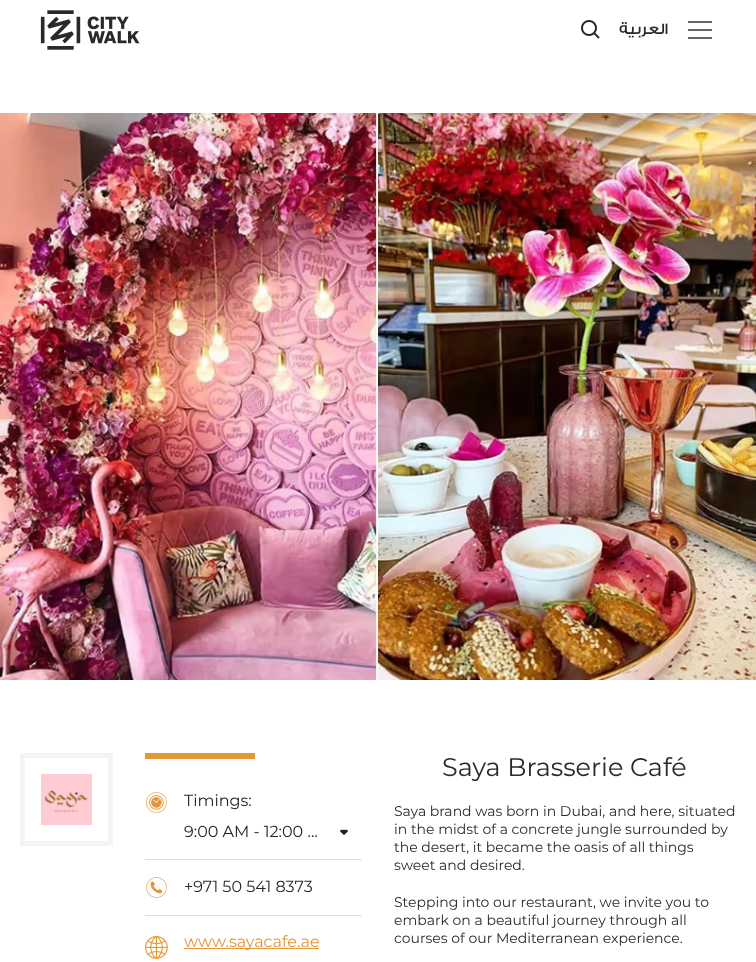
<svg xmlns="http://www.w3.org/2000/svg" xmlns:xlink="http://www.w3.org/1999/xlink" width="756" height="962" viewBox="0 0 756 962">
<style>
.cls-1{font:500 16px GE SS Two;direction:rtl;fill:#292929}
.cls-2{font:16px Montserrat;fill:#292929}
.cls-3{font:16px Montserrat;fill:#222222}
.cls-4{font:16px Montserrat;fill:#e59535}
.cls-5{font:25.5px Montserrat;fill:#292929}
.cls-6{font:14px Montserrat;fill:#292929}
</style>
<rect width="100%" height="100%" fill="#ffffff"/>
<image xlink:href="image0.png" x="40" y="10" width="100" height="40"/>
<image xlink:href="image1.png" x="581" y="20" width="19" height="19"/>
<rect fill="#666666" x="688" y="21" width="24" height="2"/>
<rect fill="#666666" x="688" y="29" width="24" height="2"/>
<rect fill="#666666" x="688" y="37" width="24" height="2"/>
<image xlink:href="image2.png" x="0" y="113" width="756" height="567"/>
<rect fill="none" stroke="#f4f4f4" stroke-width="5" x="22.5" y="755.5" width="88" height="88"/>
<image xlink:href="image3.png" x="41" y="774" width="51" height="51"/>
<rect fill="#e59535" x="145" y="753" width="110" height="6"/>
<rect fill="#e0e0e0" x="145" y="859" width="217" height="1"/>
<image xlink:href="image4.png" x="146" y="792" width="21" height="21"/>
<image xlink:href="image5.png" x="340" y="829" width="8" height="6"/>
<rect fill="#e0e0e0" x="145" y="915" width="217" height="1"/>
<image xlink:href="image6.png" x="146" y="877" width="21" height="21"/>
<image xlink:href="image7.png" x="145" y="936" width="23" height="23"/>
<rect fill="#e59535" x="184" y="948" width="135" height="1"/>
<text class="cls-1" x="668" y="34">العربية</text>
<text class="cls-2" x="184" y="806">Timings:</text>
<text class="cls-3" x="184" y="837">9:00 AM - 12:00 …</text>
<text class="cls-2" x="184" y="892">+971 50 541 8373</text>
<text class="cls-4" x="184" y="947">www.sayacafe.ae</text>
<text class="cls-5" x="442" y="776">Saya Brasserie Café</text>
<text class="cls-6"><tspan x="394" y="816">Saya brand was born in Dubai, and here, situated</tspan><tspan x="394" y="834">in the midst of a concrete jungle surrounded by</tspan><tspan x="394" y="852">the desert, it became the oasis of all things</tspan><tspan x="394" y="870">sweet and desired.</tspan></text>
<text class="cls-6"><tspan x="394" y="907">Stepping into our restaurant, we invite you to</tspan><tspan x="394" y="925">embark on a beautiful journey through all</tspan><tspan x="394" y="943">courses of our Mediterranean experience.</tspan></text>
</svg>
